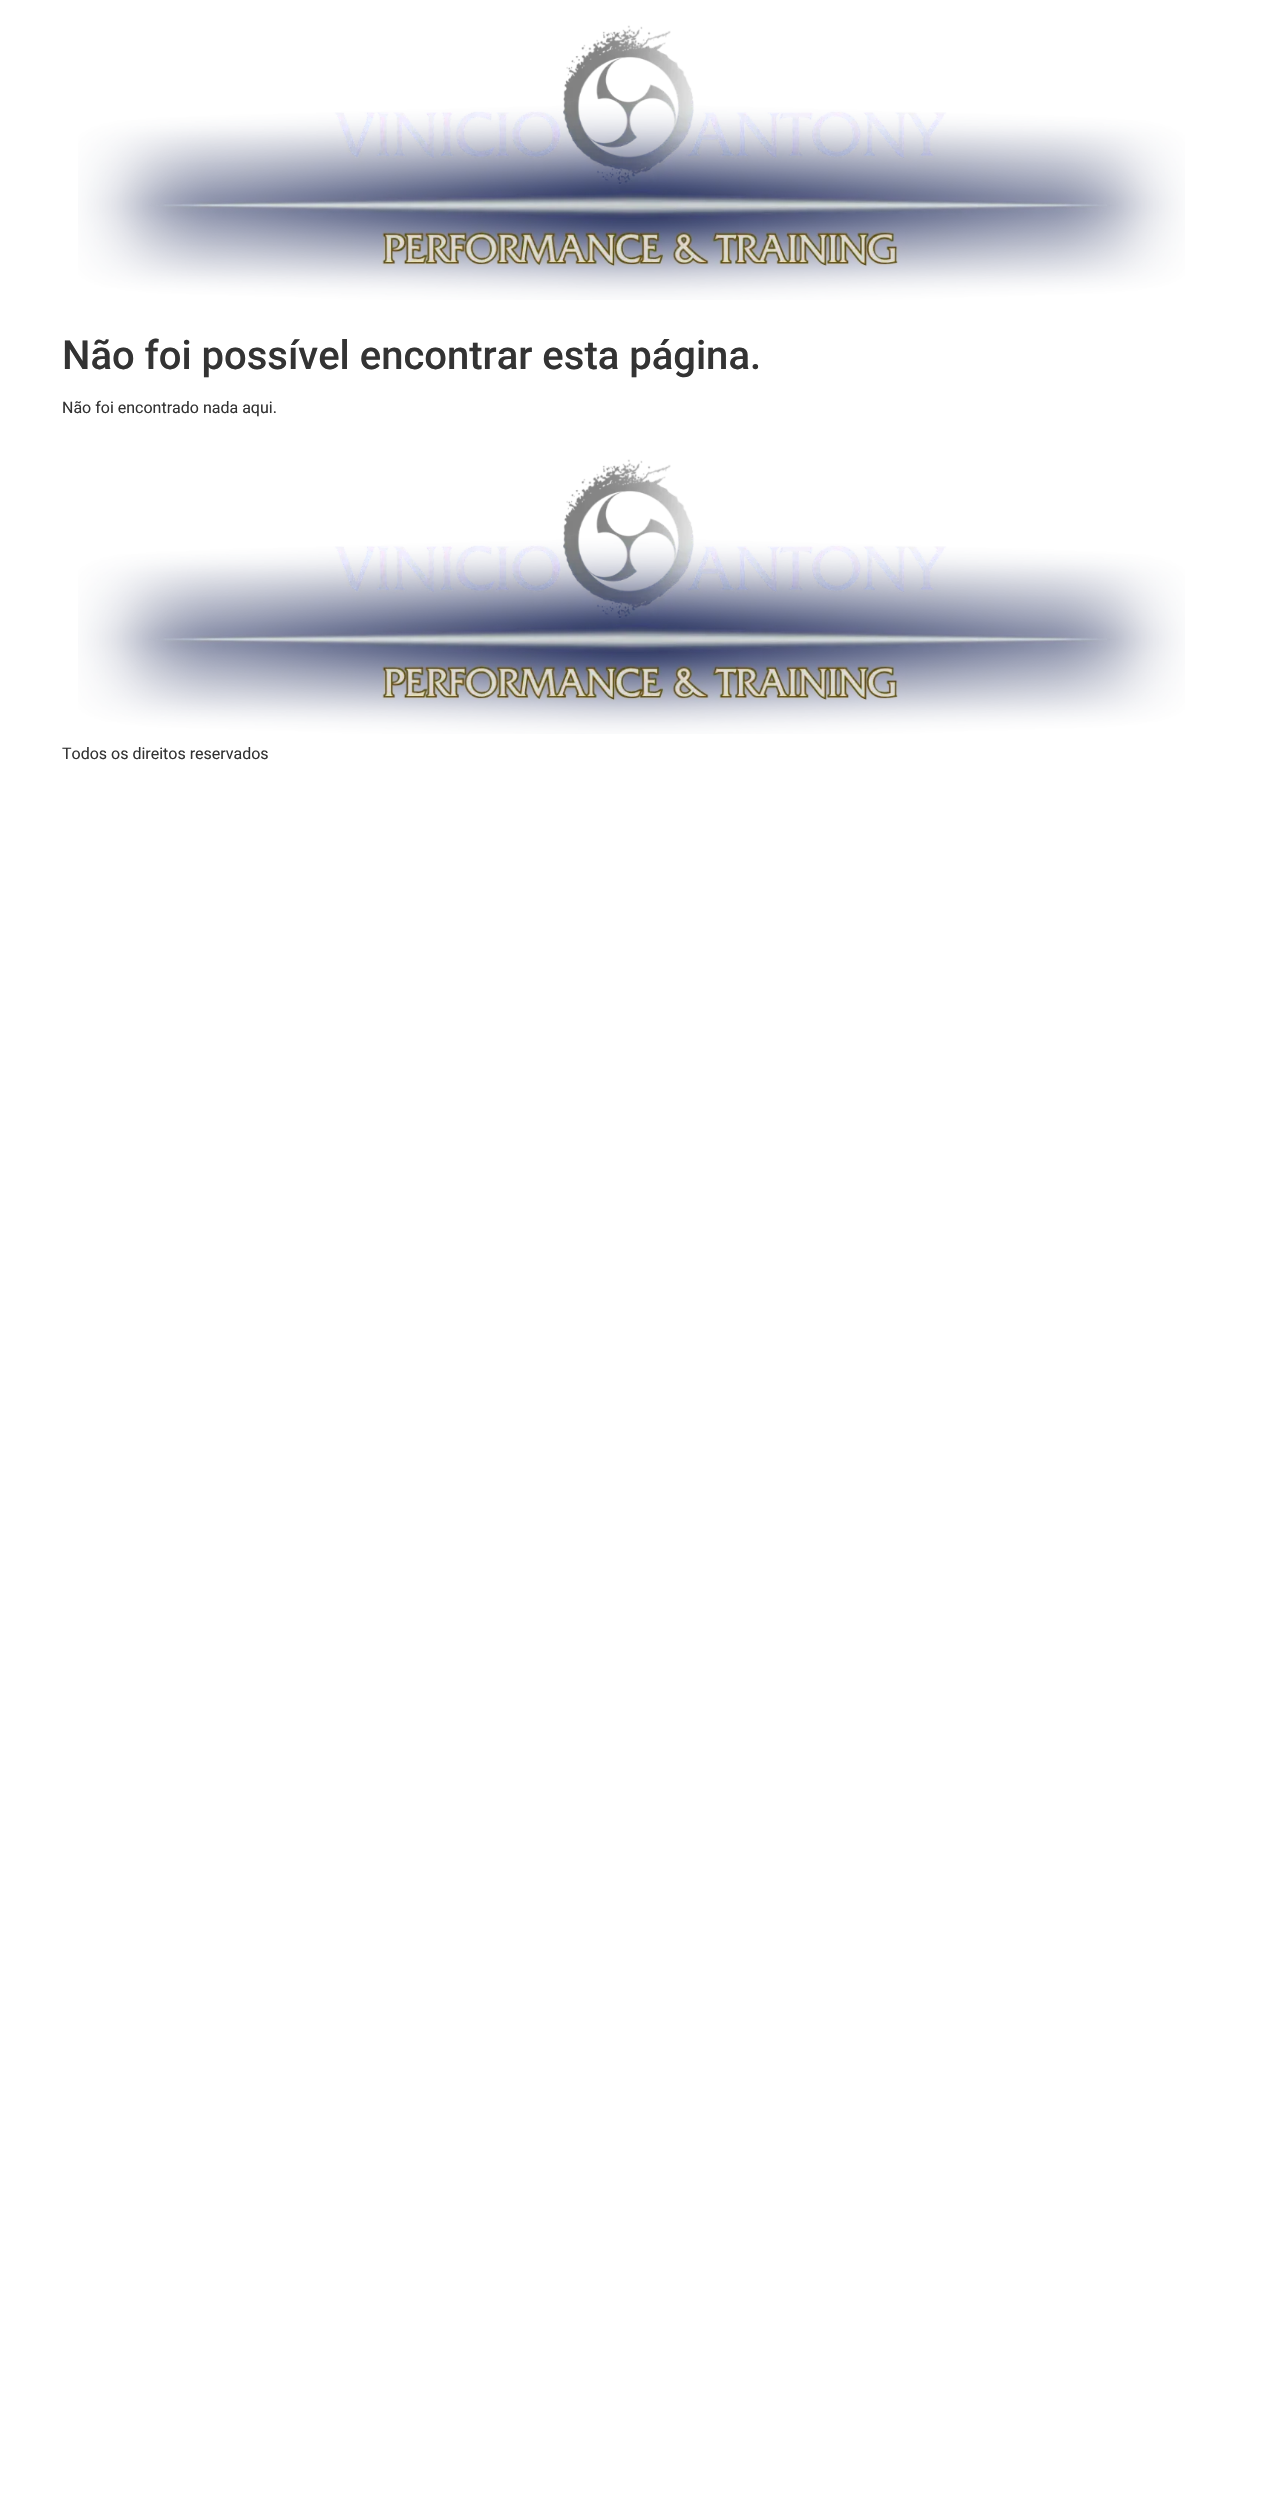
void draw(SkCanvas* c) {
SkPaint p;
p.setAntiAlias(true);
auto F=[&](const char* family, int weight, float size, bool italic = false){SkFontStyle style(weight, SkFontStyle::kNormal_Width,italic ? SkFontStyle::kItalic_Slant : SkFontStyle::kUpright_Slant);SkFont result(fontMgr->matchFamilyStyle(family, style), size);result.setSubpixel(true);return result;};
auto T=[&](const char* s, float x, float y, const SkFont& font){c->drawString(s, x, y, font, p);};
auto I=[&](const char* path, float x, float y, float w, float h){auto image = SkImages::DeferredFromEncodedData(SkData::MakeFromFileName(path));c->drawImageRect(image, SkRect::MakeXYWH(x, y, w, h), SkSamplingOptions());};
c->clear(0xffffffff);
I("1.png",78,25,1107,275);
auto f1 = F("Roboto",500,40);
p.setColor(0xff333333);
T("Não foi possível encontrar esta página.",62,369,f1);
auto f2 = F("Roboto",400,16);
T("Não foi encontrado nada aqui.",62,413,f2);
I("1.png",78,459,1107,275);
T("Todos os direitos reservados",62,759,f2);
}
